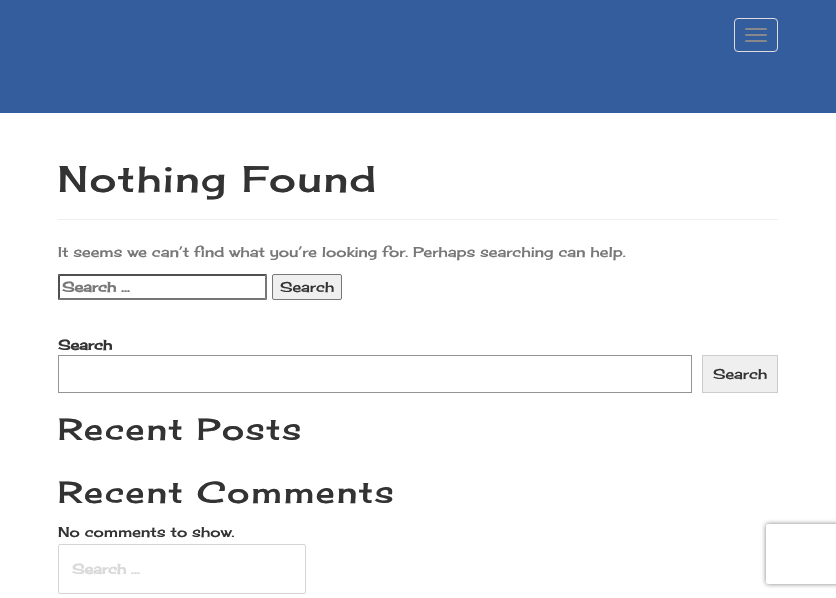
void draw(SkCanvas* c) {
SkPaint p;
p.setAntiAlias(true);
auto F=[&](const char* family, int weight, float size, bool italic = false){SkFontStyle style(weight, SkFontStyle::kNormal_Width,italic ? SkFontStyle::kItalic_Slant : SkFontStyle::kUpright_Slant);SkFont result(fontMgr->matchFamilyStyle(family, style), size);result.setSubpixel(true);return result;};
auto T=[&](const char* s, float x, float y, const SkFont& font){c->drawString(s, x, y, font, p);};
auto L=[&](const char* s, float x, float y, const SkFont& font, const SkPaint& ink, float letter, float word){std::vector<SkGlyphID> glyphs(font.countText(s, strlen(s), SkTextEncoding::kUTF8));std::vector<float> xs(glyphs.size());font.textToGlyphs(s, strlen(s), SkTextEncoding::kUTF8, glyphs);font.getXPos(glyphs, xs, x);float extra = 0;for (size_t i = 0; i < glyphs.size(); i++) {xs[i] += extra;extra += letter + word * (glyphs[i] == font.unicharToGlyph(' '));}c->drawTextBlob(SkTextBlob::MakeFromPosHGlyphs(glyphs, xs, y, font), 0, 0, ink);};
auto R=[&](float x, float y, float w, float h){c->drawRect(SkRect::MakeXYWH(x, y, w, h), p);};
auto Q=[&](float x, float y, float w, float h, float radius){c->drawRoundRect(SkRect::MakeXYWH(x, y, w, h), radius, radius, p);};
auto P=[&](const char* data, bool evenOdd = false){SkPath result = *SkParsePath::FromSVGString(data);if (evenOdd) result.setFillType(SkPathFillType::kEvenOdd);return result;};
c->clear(0xffffffff);
p.setColor(0xff345d9d);
R(0,0,836,113);
p.setStroke(true);
p.setStrokeWidth(1);
p.setColor(0xffdddddd);
c->drawRoundRect(SkRect::MakeXYWH(734.5,18.5,43,33),3.5,3.5,p);
p.setStroke(false);
p.setColor(0xff888888);
Q(745,28,22,2,1);
Q(745,34,22,2,1);
Q(745,40,22,2,1);
p.setColor(0xffeeeeee);
R(58,219,720,1);
auto f1 = F("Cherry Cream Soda",400,36);
p.setColor(0xff333333);
L("Nothing Found",58,192,f1,p,2,0);
auto f2 = F("Cherry Cream Soda",400,14);
p.setColor(0xff777777);
T("It seems we can’t find what you’re looking for. Perhaps searching can help.",58,257,f2);
p.setColor(0xff4f4f4f);
c->drawPath(P("M58 274h209l-2 2h-205z"),p);
p.setColor(0xff767676);
c->drawPath(P("M267 274v26l-2-2v-22z"),p);
c->drawPath(P("M267 300h-209l2-2h205z"),p);
p.setColor(0xff4f4f4f);
c->drawPath(P("M58 300v-26l2 2v22z"),p);
auto f3 = F("Cherry Cream Soda",700,14);
p.setColor(0xff777777);
T("Search …",62,292,f3);
p.setColor(0xffefefef);
c->drawRoundRect(SkRect::MakeXYWH(272.5,274.5,69,25),1.5,1.5,p);
p.setStroke(true);
p.setColor(0xff767676);
c->drawRoundRect(SkRect::MakeXYWH(272.5,274.5,69,25),1.5,1.5,p);
p.setStroke(false);
p.setColor(0xff333333);
T("Search",280,292,f2);
T("Search",58,350,f3);
p.setStroke(true);
p.setColor(0xff949494);
c->drawRect(SkRect::MakeXYWH(58.5,355.5,633,37),p);
p.setStroke(false);
p.setColor(0xffefefef);
c->drawRect(SkRect::MakeXYWH(702.5,355.5,75,37),p);
p.setStroke(true);
p.setColor(0xffcccccc);
c->drawRect(SkRect::MakeXYWH(702.5,355.5,75,37),p);
p.setStroke(false);
p.setColor(0xff333333);
T("Search",713,379,f2);
auto f4 = F("Cherry Cream Soda",400,30);
L("Recent Posts",58,440,f4,p,2,0);
L("Recent Comments",58,503,f4,p,2,0);
T("No comments to show.",58,537,f2);
p.setStroke(true);
p.setColor(0xffd5d5d5);
c->drawRoundRect(SkRect::MakeXYWH(58.5,544.5,247,49),1.5,1.5,p);
p.setStroke(false);
p.setColor(0xffd9d9d9);
T("Search …",72,574,f3);
c->save();
c->clipPath(P("M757 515h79v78h-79zm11 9h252c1 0 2 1 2 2v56c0 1-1 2-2 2h-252c-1 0-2-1-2-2v-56c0-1 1-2 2-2z",true),true);
p.setColor(0xff808080);
p.setMaskFilter(SkMaskFilter::MakeBlur(kNormal_SkBlurStyle, 2.5));
c->drawRoundRect(SkRect::MakeXYWH(766,524,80,60),2,2,p);
p.setMaskFilter(nullptr);
c->restore();
}
